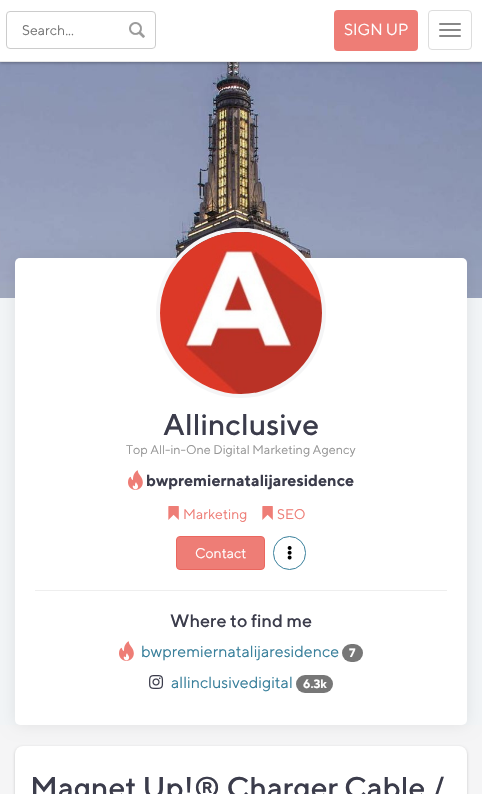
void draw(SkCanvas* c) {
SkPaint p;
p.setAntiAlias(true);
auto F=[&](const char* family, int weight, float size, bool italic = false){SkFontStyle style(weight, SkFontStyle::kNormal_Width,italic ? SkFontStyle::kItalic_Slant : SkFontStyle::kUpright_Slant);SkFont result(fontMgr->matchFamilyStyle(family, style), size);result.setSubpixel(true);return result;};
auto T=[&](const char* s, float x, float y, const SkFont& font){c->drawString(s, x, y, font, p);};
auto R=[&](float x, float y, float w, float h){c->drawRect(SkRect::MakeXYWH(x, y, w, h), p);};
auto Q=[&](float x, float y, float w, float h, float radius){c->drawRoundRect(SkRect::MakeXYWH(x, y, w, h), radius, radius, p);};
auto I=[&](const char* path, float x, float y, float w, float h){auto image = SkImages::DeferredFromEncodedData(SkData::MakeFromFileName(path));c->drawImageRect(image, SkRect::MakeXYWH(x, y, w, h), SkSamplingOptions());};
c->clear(0xfff5f5f6);
I("2.png",0,62,482,236);
p.setColor(0x4d000000);
p.setMaskFilter(SkMaskFilter::MakeBlur(kNormal_SkBlurStyle, 1.5));
c->drawRect(SkRect::MakeXYWH(0,1,482,62),p);
p.setMaskFilter(nullptr);
p.setColor(0xffffffff);
R(0,0,482,61);
p.setColor(0xffe7e7e7);
R(0,61,482,1);
I("1.png",129,22,16,16);
p.setStroke(true);
p.setStrokeWidth(1);
p.setColor(0xffcccccc);
c->drawRoundRect(SkRect::MakeXYWH(6.5,11.5,149,37),3.5,3.5,p);
auto f1 = F("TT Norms",400,14);
p.setStroke(false);
p.setColor(0xff757575);
T("Search...",22,35,f1);
p.setColor(0xffee7d76);
Q(334,10,84,41,4);
auto f2 = F("TT Norms",400,16);
p.setColor(0xffffffff);
T("SIGN UP",344,35,f2);
p.setStroke(true);
p.setColor(0xffdddddd);
c->drawRoundRect(SkRect::MakeXYWH(428.5,10.5,43,39),3.5,3.5,p);
p.setStroke(false);
p.setColor(0xff888888);
Q(439,23,22,2,1);
Q(439,29,22,2,1);
Q(439,35,22,2,1);
p.setColor(0xfff2f5f7);
R(0,298,482,427);
p.setColor(0x14000000);
p.setMaskFilter(SkMaskFilter::MakeBlur(kNormal_SkBlurStyle, 7.5));
c->drawRoundRect(SkRect::MakeXYWH(15,258,452,467),5,5,p);
p.setMaskFilter(nullptr);
p.setColor(0xffffffff);
Q(15,258,452,467,5);
p.setStroke(true);
p.setStrokeWidth(4);
p.setColor(0xfff5f5f6);
c->drawCircle(241,313,83,p);
I("3.png",160,232,162,162);
auto f3 = F("TT Norms",500,30);
p.setStroke(false);
p.setColor(0xff3b3c4b);
T("Allinclusive",163,435,f3);
auto f4 = F("TT Norms",400,12.6);
p.setColor(0xff969696);
T("Top All-in-One Digital Marketing Agency",126,454,f4);
I("4.png",128,470,15,20);
auto f5 = F("TT Norms",700,16);
p.setColor(0xff3b3c4b);
T("bwpremiernatalijaresidence",146,486,f5);
I("5.png",168,506,11,14);
p.setColor(0xffee7d76);
T("Marketing",183,519,f1);
I("5.png",262,506,11,14);
T("SEO",277,519,f1);
c->drawRoundRect(SkRect::MakeXYWH(176.5,536.5,88,33),3.5,3.5,p);
p.setStroke(true);
p.setStrokeWidth(1);
p.setColor(0xffeb675f);
c->drawRoundRect(SkRect::MakeXYWH(176.5,536.5,88,33),3.5,3.5,p);
p.setStroke(false);
p.setColor(0xffffffff);
T("Contact",195,558,f1);
p.setStroke(true);
p.setColor(0xff387f9b);
c->drawRoundRect(SkRect::MakeXYWH(273.5,536.5,32,33),16,16,p);
I("6.png",287,546,5,14);
p.setStroke(false);
p.setColor(0xffeeeeee);
R(35,590,412,1);
auto f6 = F("TT Norms",500,18);
p.setColor(0xff3b3c4b);
T("Where to find me",170,627,f6);
I("4.png",119,641,15,20);
p.setColor(0xff387f9b);
T("bwpremiernatalijaresidence",141,657,f2);
p.setColor(0xff777777);
Q(342,644,21,18,9);
auto f7 = F("TT Norms",700,12);
p.setColor(0xffffffff);
T("7",349,657,f7);
I("7.png",149,675,15,14);
p.setColor(0xff387f9b);
T("allinclusivedigital",171,688,f2);
p.setColor(0xff777777);
Q(296,675,37,18,9);
p.setColor(0xffffffff);
T("6.3k",303,688,f7);
p.setColor(0x33000000);
p.setMaskFilter(SkMaskFilter::MakeBlur(kNormal_SkBlurStyle, 1.5));
c->drawRoundRect(SkRect::MakeXYWH(15,747,452,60),8,8,p);
p.setMaskFilter(nullptr);
p.setColor(0xffffffff);
Q(15,746,452,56,8);
p.setColor(0xff3b3c4b);
T("Magnet Up!® Charger Cable /",30,798,f3);
}
